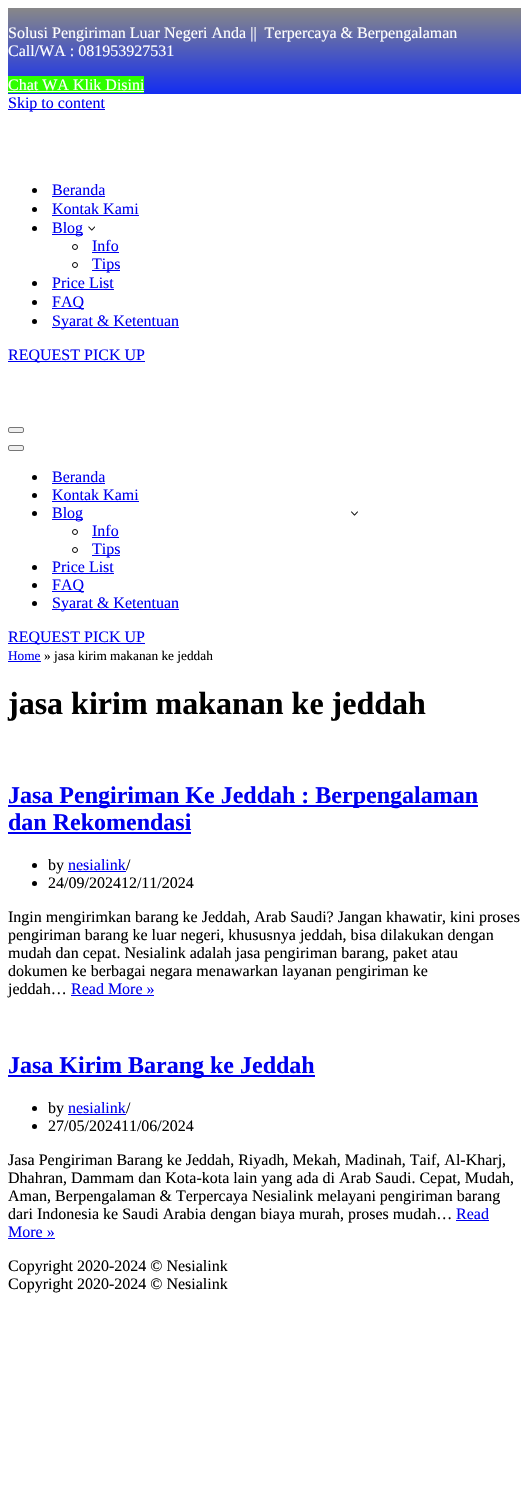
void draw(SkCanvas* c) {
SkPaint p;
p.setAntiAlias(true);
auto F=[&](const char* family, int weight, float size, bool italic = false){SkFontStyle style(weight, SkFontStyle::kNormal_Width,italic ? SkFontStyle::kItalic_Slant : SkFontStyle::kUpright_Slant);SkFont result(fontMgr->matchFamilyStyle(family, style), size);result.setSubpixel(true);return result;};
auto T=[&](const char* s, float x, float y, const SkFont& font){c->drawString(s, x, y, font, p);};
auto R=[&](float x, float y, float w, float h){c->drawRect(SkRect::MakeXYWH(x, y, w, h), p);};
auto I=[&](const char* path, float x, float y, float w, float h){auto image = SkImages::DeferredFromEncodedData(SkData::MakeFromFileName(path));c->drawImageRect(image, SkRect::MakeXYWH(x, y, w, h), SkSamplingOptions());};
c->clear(0xffffffff);
{
const SkColor colors[] = {0xff888888,0xff132df2};
const float stops[] = {0,1};
const SkPoint ends[] = {{265,8}, {265,94}};
p.setShader(SkGradientShader::MakeLinear(ends, colors, stops, 2, SkTileMode::kClamp));
p.setAlpha(255);
}
R(8,8,513,86);
auto f1 = F("Liberation Serif",400,16);
p.setShader(nullptr);
p.setColor(0xffffffff);
T("Solusi Pengiriman Luar Negeri Anda ||  Terpercaya & Berpengalaman",8,38,f1);
T("Call/WA : 081953927531",8,56,f1);
p.setColor(0xff2fff00);
R(8,76,136,17);
p.setColor(0xffffffff);
T("Chat WA Klik Disini",8,90,f1);
R(8,91,136,1);
p.setColor(0xff0000ee);
R(8,109,97,1);
T("Skip to content",8,108,f1);
p.setColor(0xff000000);
c->drawCircle(34.5,190.5,2.5,p);
p.setColor(0xff0000ee);
T("Beranda",52,195,f1);
R(52,196,53,1);
p.setColor(0xff000000);
c->drawCircle(34.5,209.5,2.5,p);
p.setColor(0xff0000ee);
T("Kontak Kami",52,214,f1);
R(52,215,87,1);
p.setColor(0xff000000);
c->drawCircle(34.5,228.5,2.5,p);
p.setColor(0xff0000ee);
R(52,234,31,1);
T("Blog",52,233,f1);
I("1.png",88,226,7,5);
p.setStroke(true);
p.setStrokeWidth(1);
p.setColor(0xff000000);
c->drawCircle(75,247,2.5,p);
p.setStroke(false);
p.setColor(0xff0000ee);
T("Info",92,251,f1);
R(92,252,27,1);
p.setStroke(true);
p.setColor(0xff000000);
c->drawCircle(75,265,2.5,p);
p.setStroke(false);
p.setColor(0xff0000ee);
R(92,270,28,1);
T("Tips",92,269,f1);
p.setColor(0xff000000);
c->drawCircle(34.5,283.5,2.5,p);
p.setColor(0xff0000ee);
T("Price List",52,288,f1);
R(52,289,62,1);
p.setColor(0xff000000);
c->drawCircle(34.5,302.5,2.5,p);
p.setColor(0xff0000ee);
R(52,308,32,1);
T("FAQ",52,307,f1);
p.setColor(0xff000000);
c->drawCircle(34.5,321.5,2.5,p);
p.setColor(0xff0000ee);
R(52,327,127,1);
T("Syarat & Ketentuan",52,326,f1);
R(8,361,137,1);
T("REQUEST PICK UP",8,360,f1);
p.setColor(0xffefefef);
c->drawRoundRect(SkRect::MakeXYWH(8.5,427.5,15,5),1.5,1.5,p);
p.setStroke(true);
p.setColor(0xff767676);
c->drawRoundRect(SkRect::MakeXYWH(8.5,427.5,15,5),1.5,1.5,p);
p.setStroke(false);
p.setColor(0xffefefef);
c->drawRoundRect(SkRect::MakeXYWH(8.5,445.5,15,5),1.5,1.5,p);
p.setStroke(true);
p.setColor(0xff767676);
c->drawRoundRect(SkRect::MakeXYWH(8.5,445.5,15,5),1.5,1.5,p);
p.setStroke(false);
p.setColor(0xff000000);
c->drawCircle(34.5,477.5,2.5,p);
p.setColor(0xff0000ee);
T("Beranda",52,482,f1);
R(52,483,53,1);
p.setColor(0xff000000);
c->drawCircle(34.5,495.5,2.5,p);
p.setColor(0xff0000ee);
T("Kontak Kami",52,500,f1);
R(52,501,87,1);
p.setColor(0xff000000);
c->drawCircle(34.5,513.5,2.5,p);
p.setColor(0xff0000ee);
R(52,519,31,1);
T("Blog",52,518,f1);
I("2.png",351,511,7,5);
p.setStroke(true);
p.setColor(0xff000000);
c->drawCircle(75,532,2.5,p);
p.setStroke(false);
p.setColor(0xff0000ee);
T("Info",92,536,f1);
R(92,537,27,1);
p.setStroke(true);
p.setColor(0xff000000);
c->drawCircle(75,550,2.5,p);
p.setStroke(false);
p.setColor(0xff0000ee);
R(92,555,28,1);
T("Tips",92,554,f1);
p.setColor(0xff000000);
c->drawCircle(34.5,567.5,2.5,p);
p.setColor(0xff0000ee);
T("Price List",52,572,f1);
R(52,573,62,1);
p.setColor(0xff000000);
c->drawCircle(34.5,585.5,2.5,p);
p.setColor(0xff0000ee);
R(52,591,32,1);
T("FAQ",52,590,f1);
p.setColor(0xff000000);
c->drawCircle(34.5,603.5,2.5,p);
p.setColor(0xff0000ee);
R(52,609,127,1);
T("Syarat & Ketentuan",52,608,f1);
R(8,643,137,1);
T("REQUEST PICK UP",8,642,f1);
auto f2 = F("Liberation Serif",400,13.3);
T("Home",8,660,f2);
R(8,661,33,1);
p.setColor(0xff000000);
T("» jasa kirim makanan ke jeddah",44,660,f2);
auto f3 = F("Liberation Serif",700,32);
T("jasa kirim makanan ke jeddah",8,714,f3);
p.setColor(0xff0000ee);
R(8,805,470,2);
auto f4 = F("Liberation Serif",700,24);
T("Jasa Pengiriman Ke Jeddah : Berpengalaman",8,803,f4);
T("dan Rekomendasi",8,830,f4);
R(8,832,183,2);
p.setColor(0xff000000);
c->drawCircle(34.5,865.5,2.5,p);
T("by",48,870,f1);
p.setColor(0xff0000ee);
T("nesialink",68,870,f1);
R(68,871,58,1);
p.setColor(0xff000000);
T("/",126,870,f1);
c->drawCircle(34.5,883.5,2.5,p);
T("24/09/202412/11/2024",48,888,f1);
T("Ingin mengirimkan barang ke Jeddah, Arab Saudi? Jangan khawatir, kini proses",8,922,f1);
T("pengiriman barang ke luar negeri, khususnya jeddah, bisa dilakukan dengan",8,940,f1);
T("mudah dan cepat. Nesialink adalah jasa pengiriman barang, paket atau",8,958,f1);
T("dokumen ke berbagai negara menawarkan layanan pengiriman ke",8,976,f1);
T("jeddah…",8,994,f1);
p.setColor(0xff0000ee);
T("Read More »",71,994,f1);
R(71,995,83,1);
R(8,1075,307,2);
T("Jasa Kirim Barang ke Jeddah",8,1073,f4);
p.setColor(0xff000000);
c->drawCircle(34.5,1108.5,2.5,p);
T("by",48,1113,f1);
p.setColor(0xff0000ee);
T("nesialink",68,1113,f1);
R(68,1114,58,1);
p.setColor(0xff000000);
T("/",126,1113,f1);
c->drawCircle(34.5,1126.5,2.5,p);
T("27/05/202411/06/2024",48,1131,f1);
T("Jasa Pengiriman Barang ke Jeddah, Riyadh, Mekah, Madinah, Taif, Al-Kharj,",8,1165,f1);
T("Dhahran, Dammam dan Kota-kota lain yang ada di Arab Saudi. Cepat, Mudah,",8,1183,f1);
T("Aman, Berpengalaman & Terpercaya Nesialink melayani pengiriman barang",8,1201,f1);
T("dari Indonesia ke Saudi Arabia dengan biaya murah, proses mudah…",8,1219,f1);
p.setColor(0xff0000ee);
T("Read",456,1219,f1);
R(456,1220,33,1);
T("More »",8,1237,f1);
R(8,1238,47,1);
p.setColor(0xff000000);
T("Copyright 2020-2024 © Nesialink",8,1271,f1);
T("Copyright 2020-2024 © Nesialink",8,1289,f1);
}
